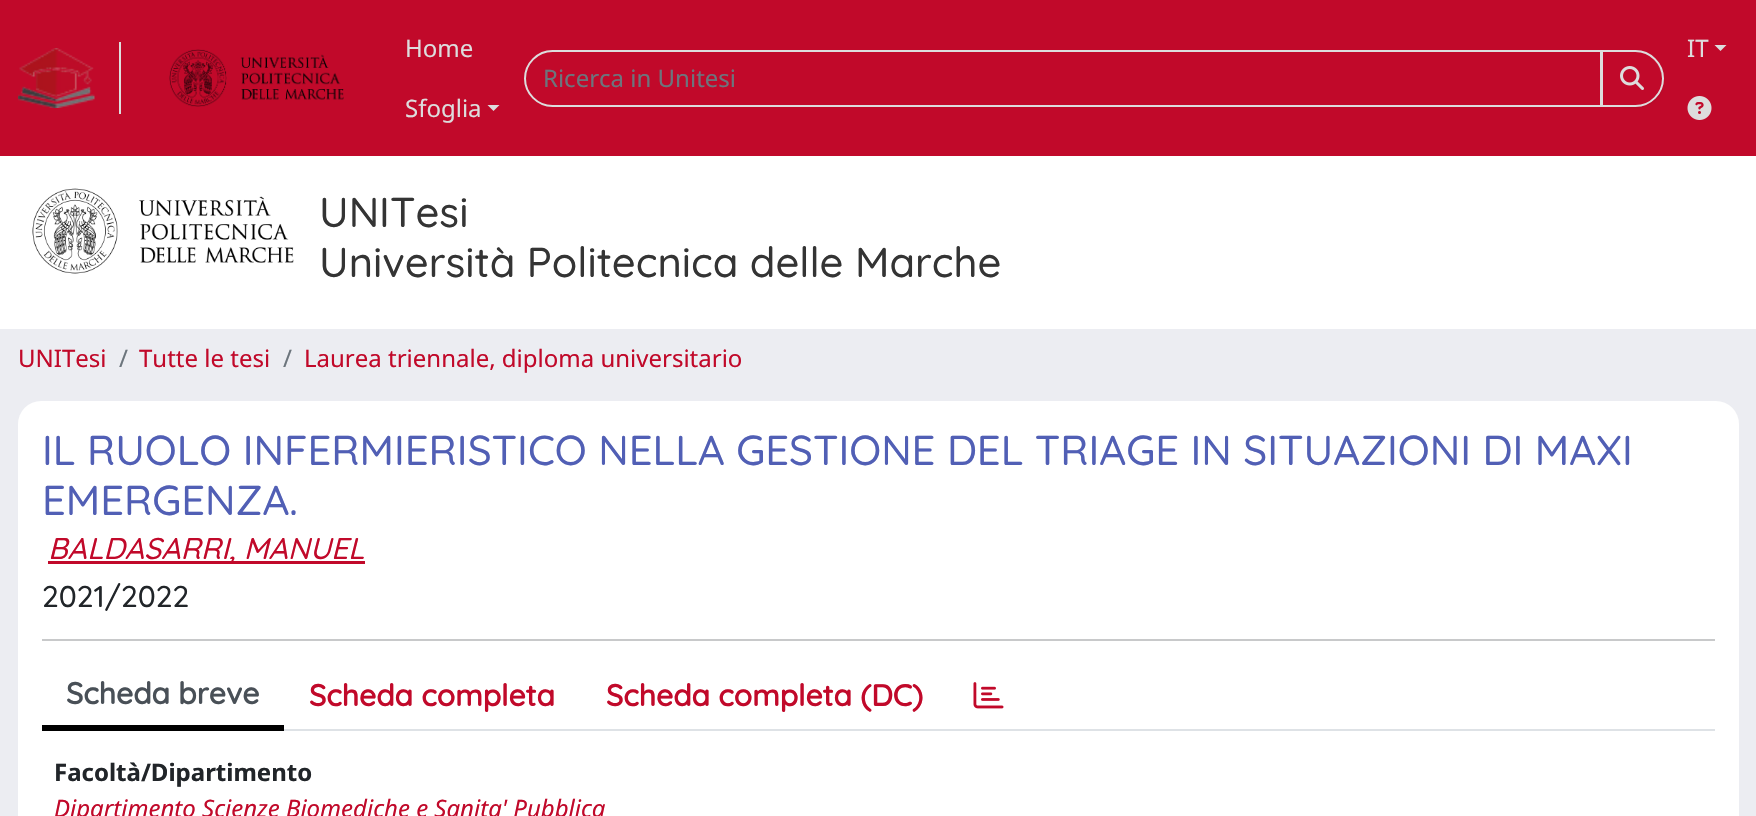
void draw(SkCanvas* c) {
SkPaint p;
p.setAntiAlias(true);
auto F=[&](const char* family, int weight, float size, bool italic = false){SkFontStyle style(weight, SkFontStyle::kNormal_Width,italic ? SkFontStyle::kItalic_Slant : SkFontStyle::kUpright_Slant);SkFont result(fontMgr->matchFamilyStyle(family, style), size);result.setSubpixel(true);return result;};
auto T=[&](const char* s, float x, float y, const SkFont& font){c->drawString(s, x, y, font, p);};
auto R=[&](float x, float y, float w, float h){c->drawRect(SkRect::MakeXYWH(x, y, w, h), p);};
auto Q=[&](float x, float y, float w, float h, float radius){c->drawRoundRect(SkRect::MakeXYWH(x, y, w, h), radius, radius, p);};
auto I=[&](const char* path, float x, float y, float w, float h){auto image = SkImages::DeferredFromEncodedData(SkData::MakeFromFileName(path));c->drawImageRect(image, SkRect::MakeXYWH(x, y, w, h), SkSamplingOptions());};
auto P=[&](const char* data, bool evenOdd = false){SkPath result = *SkParsePath::FromSVGString(data);if (evenOdd) result.setFillType(SkPathFillType::kEvenOdd);return result;};
c->clear(0xffecedf2);
p.setColor(0xffc1092a);
R(0,0,1756,156);
p.setColor(0xffdddddd);
R(119,42,2,72);
I("1.png",18,48,77,60);
I("2.png",169,49,175,58);
auto f1 = F("Noto Sans",400,24);
T("Home",405,57,f1);
T("Sfoglia",405,117,f1);
c->drawPath(P("M487.5 105h12l-6 6z"),p);
T("IT",1687,57,f1);
c->drawPath(P("M1714.5 45h12l-6 6z"),p);
I("3.png",1687,96,25,24);
p.setStroke(true);
p.setStrokeWidth(2);
c->drawPath(P("M552.5 51h1048.5v55h-1048.5c-15 0-27.5-12.5-27.5-27.5c0-15 12.5-27.5 27.5-27.5z"),p);
p.setStroke(false);
p.setColor(0xff6c757d);
T("Ricerca in Unitesi",543,87,f1);
p.setColor(0x12000000);
p.setMaskFilter(SkMaskFilter::MakeBlur(kNormal_SkBlurStyle, 1));
c->drawRoundRect(SkRect::MakeXYWH(1601,51,63,57),28.5,28.5,p);
p.setMaskFilter(nullptr);
p.setColor(0xffc1092a);
c->drawPath(P("M1601 50h34.5c15.5 0 28.5 13 28.5 28.5c0 15.5-13 28.5-28.5 28.5h-34.5z"),p);
p.setColor(0xffca2e4a);
c->drawPath(P("M1602 52h33c15 0 26 12 27 27v-1c0-15-12-27-27-27h-33z"),p);
p.setStroke(true);
p.setColor(0xffdddddd);
c->drawPath(P("M1602 51h33.5c15 0 27.5 12.5 27.5 27.5c0 15-12.5 27.5-27.5 27.5h-33.5z"),p);
I("4.png",1620,66,24,24);
p.setStroke(false);
p.setColor(0xffffffff);
R(0,156,1756,173);
I("5.png",32,188,262,86);
auto f2 = F("Quicksand",500,41.75);
p.setColor(0xff343434);
T("UNITesi",319,227,f2);
T("Università Politecnica delle Marche",319,277,f2);
p.setColor(0xffc1092a);
T("UNITesi",18,367,f1);
p.setColor(0xff6c757d);
T("/",119,367,f1);
p.setColor(0xffc1092a);
T("Tutte le tesi",139,367,f1);
p.setColor(0xff6c757d);
T("/",283,367,f1);
p.setColor(0xffc1092a);
T("Laurea triennale, diploma universitario",304,367,f1);
p.setColor(0xffffffff);
Q(18,401,1721,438,23);
p.setColor(0xff515fb5);
T("IL RUOLO INFERMIERISTICO NELLA GESTIONE DEL TRIAGE IN SITUAZIONI DI MAXI",42,465,f2);
T("EMERGENZA.",42,515,f2);
p.setColor(0xffc1092a);
R(48,561,317,3);
auto f3 = F("Quicksand",500,30,true);
T("BALDASARRI, MANUEL",48,559,f3);
auto f4 = F("Quicksand",500,30);
p.setColor(0xff212529);
T("2021/2022",42,607,f4);
p.setColor(0xffc8c9ca);
R(42,639,1673,2);
p.setColor(0xffdee2e6);
R(284,729,1431,2);
p.setColor(0xff000000);
R(42,725,242,6);
auto f5 = F("Quicksand",700,30);
p.setColor(0xff495057);
T("Scheda breve",66,704,f5);
p.setColor(0xffc1092a);
T("Scheda completa",309,706,f5);
T("Scheda completa (DC)",606,706,f5);
I("6.png",973,682,31,27);
auto f6 = F("Noto Sans",700,24);
p.setColor(0xff212529);
T("Facoltà/Dipartimento",54,781,f6);
auto f7 = F("Noto Sans",400,24,true);
p.setColor(0xffc1092a);
T("Dipartimento Scienze Biomediche e Sanita' Pubblica",54,817,f7);
}
